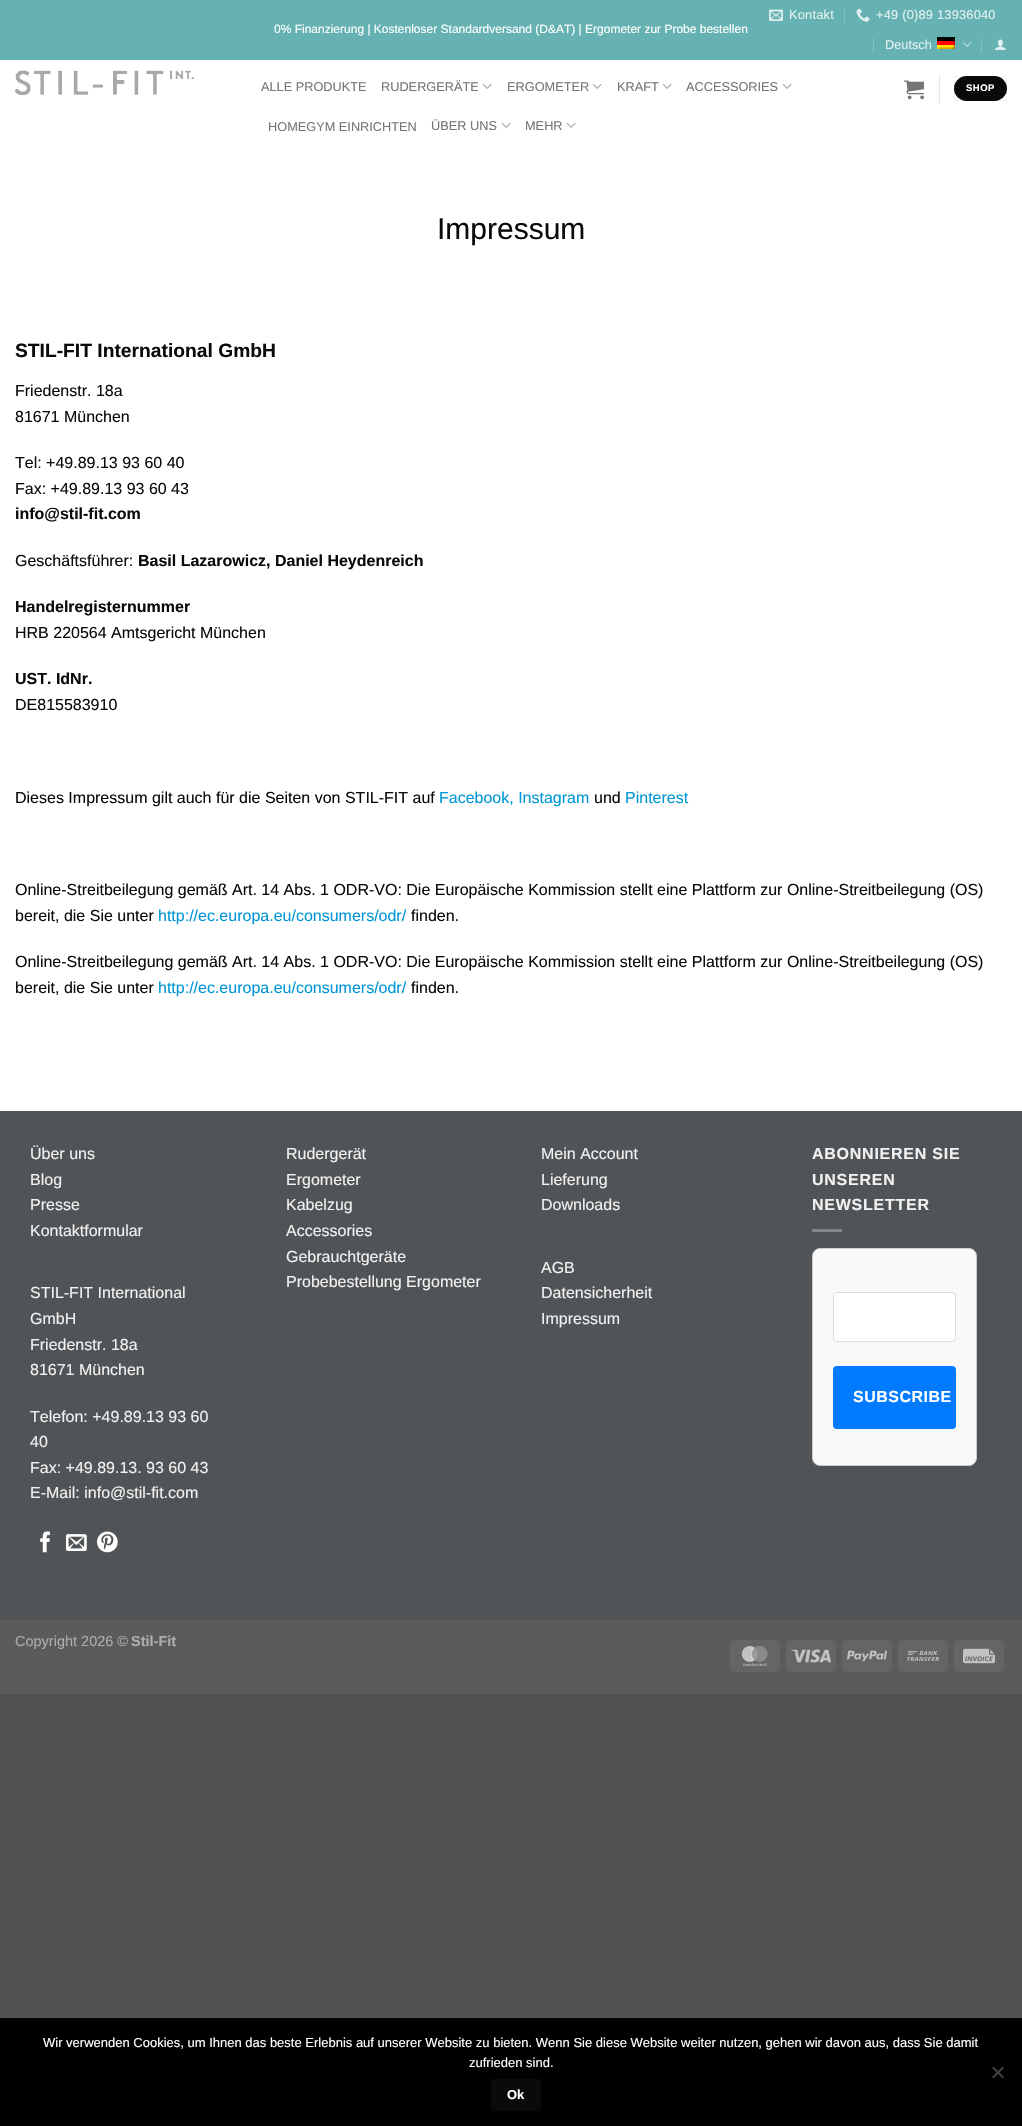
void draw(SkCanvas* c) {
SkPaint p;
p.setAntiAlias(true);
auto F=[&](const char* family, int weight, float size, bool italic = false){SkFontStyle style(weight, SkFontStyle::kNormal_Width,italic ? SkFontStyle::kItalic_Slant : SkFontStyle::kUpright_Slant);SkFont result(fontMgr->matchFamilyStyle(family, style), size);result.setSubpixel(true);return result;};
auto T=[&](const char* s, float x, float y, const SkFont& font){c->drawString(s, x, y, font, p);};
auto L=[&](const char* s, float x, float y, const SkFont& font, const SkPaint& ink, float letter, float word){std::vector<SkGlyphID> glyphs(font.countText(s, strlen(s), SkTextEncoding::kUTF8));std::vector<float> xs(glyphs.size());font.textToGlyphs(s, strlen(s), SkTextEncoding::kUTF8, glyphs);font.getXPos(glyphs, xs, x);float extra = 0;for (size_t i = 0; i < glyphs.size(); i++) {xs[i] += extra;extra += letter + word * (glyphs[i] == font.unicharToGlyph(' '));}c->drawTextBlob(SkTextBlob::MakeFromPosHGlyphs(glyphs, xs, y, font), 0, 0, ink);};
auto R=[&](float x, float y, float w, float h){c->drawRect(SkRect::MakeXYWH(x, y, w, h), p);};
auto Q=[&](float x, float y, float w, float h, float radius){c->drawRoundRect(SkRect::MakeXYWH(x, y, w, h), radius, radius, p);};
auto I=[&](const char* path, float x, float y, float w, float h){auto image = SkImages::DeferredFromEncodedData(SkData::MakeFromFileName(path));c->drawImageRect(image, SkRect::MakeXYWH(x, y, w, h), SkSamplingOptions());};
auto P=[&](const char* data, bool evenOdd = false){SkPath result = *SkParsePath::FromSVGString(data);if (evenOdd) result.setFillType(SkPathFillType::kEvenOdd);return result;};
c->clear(0xff515151);
p.setColor(0xffffffff);
R(0,60,1022,1051);
p.setColor(0xff66b2b2);
R(0,0,1022,60);
auto f1 = F("Liberation Sans",400,12);
p.setColor(0xffffffff);
T("0% Finanzierung | Kostenloser Standardversand (D&AT) | Ergometer zur Probe bestellen",274,33,f1);
I("1.png",769,9,14,12);
auto f2 = F("Liberation Sans",400,12.75);
p.setColor(0xffe0f0f0);
L("Kontakt",789,19,f2,p,.25,0);
p.setColor(0xff85c1c1);
R(844,8,1,15);
I("2.png",856,8,14,14);
p.setColor(0xffe0f0f0);
L("+49 (0)89 13936040",876,19,f2,p,.25,0);
p.setColor(0xff85c1c1);
R(873,38,1,15);
p.setColor(0xffe0f0f0);
T("Deutsch",885,49,f2);
I("3.png",937,37,18,12);
I("4.png",962,41,10,6);
p.setColor(0xff85c1c1);
R(981,38,1,15);
I("5.png",994,39,12,11);
I("6.png",15,70,179,25);
p.setColor(0xff757575);
T("ALLE PRODUKTE",261,91,f2);
T("RUDERGERÄTE",381,91,f2);
I("7.png",482,83,10,6);
T("ERGOMETER",507,91,f2);
I("7.png",592,83,10,6);
T("KRAFT",617,91,f2);
I("7.png",662,83,10,6);
T("ACCESSORIES",686,91,f2);
I("7.png",782,83,10,6);
T("HOMEGYM EINRICHTEN",268,131,f2);
T("ÜBER UNS",431,130,f2);
I("7.png",501,122,10,6);
T("MEHR",525,130,f2);
I("7.png",566,122,10,6);
I("8.png",904,80,20,20);
p.setColor(0xffe6e6e6);
R(939,74,1,30);
p.setColor(0xff0a0a0a);
Q(954,76,53,25,12.5);
p.setStroke(true);
p.setStrokeWidth(1);
p.setColor(0x0d000000);
c->drawRect(SkRect::MakeXYWH(954.5,76.5,52,24),p);
auto f3 = F("Liberation Sans",700,9.5);
p.setStroke(false);
p.setColor(0xffffffff);
L("SHOP",966,91,f3,p,.5,0);
auto f4 = F("Liberation Sans",400,30);
p.setColor(0xff0a0a0a);
T("Impressum",437,239,f4);
auto f5 = F("Liberation Sans",700,19.25);
T("STIL-FIT International GmbH",15,357,f5);
auto f6 = F("Liberation Sans",400,16);
T("Friedenstr. 18a",15,396,f6);
T("81671 München",15,422,f6);
T("Tel: +49.89.13 93 60 40",15,468,f6);
T("Fax: +49.89.13 93 60 43",15,494,f6);
auto f7 = F("Liberation Sans",700,16);
T("info@stil-fit.com",15,519,f7);
T("Geschäftsführer:",15,566,f6);
T("Basil Lazarowicz, Daniel Heydenreich",138,566,f7);
T("Handelregisternummer",15,612,f7);
T("HRB 220564 Amtsgericht München",15,638,f6);
T("UST. IdNr.",15,684,f7);
T("DE815583910",15,710,f6);
T("Dieses Impressum gilt auch für die Seiten von STIL-FIT auf",15,803,f6);
p.setColor(0xff0096d6);
T("Facebook, Instagram",439,803,f6);
p.setColor(0xff0a0a0a);
T("und",594,803,f6);
p.setColor(0xff0096d6);
T("Pinterest",625,803,f6);
p.setColor(0xff0a0a0a);
T("Online-Streitbeilegung gemäß Art. 14 Abs. 1 ODR-VO: Die Europäische Kommission stellt eine Plattform zur Online-Streitbeilegung (OS)",15,895,f6);
T("bereit, die Sie unter",15,921,f6);
p.setColor(0xff0096d6);
T("http://ec.europa.eu/consumers/odr/",158,921,f6);
p.setColor(0xff0a0a0a);
T("finden.",411,921,f6);
T("Online-Streitbeilegung gemäß Art. 14 Abs. 1 ODR-VO: Die Europäische Kommission stellt eine Plattform zur Online-Streitbeilegung (OS)",15,967,f6);
T("bereit, die Sie unter",15,993,f6);
p.setColor(0xff0096d6);
T("http://ec.europa.eu/consumers/odr/",158,993,f6);
p.setColor(0xff0a0a0a);
T("finden.",411,993,f6);
p.setColor(0xff515457);
R(0,1111,1022,509);
p.setColor(0xfff1f1f1);
T("Über uns",30,1159,f6);
T("Blog",30,1185,f6);
T("Presse",30,1210,f6);
T("Kontaktformular",30,1236,f6);
p.setColor(0xff56585b);
R(30,1264,196,1);
p.setColor(0xfff1f1f1);
T("STIL-FIT International",30,1298,f6);
T("GmbH",30,1324,f6);
T("Friedenstr. 18a",30,1350,f6);
T("81671 München",30,1375,f6);
T("Telefon: +49.89.13 93 60",30,1422,f6);
T("40",30,1447,f6);
T("Fax: +49.89.13. 93 60 43",30,1473,f6);
T("E-Mail: info@stil-fit.com",30,1498,f6);
I("9.png",40,1531,10,22);
I("10.png",66,1534,21,17);
I("11.png",97,1531,21,22);
T("Rudergerät",286,1159,f6);
T("Ergometer",286,1185,f6);
T("Kabelzug",286,1210,f6);
T("Accessories",286,1236,f6);
T("Gebrauchtgeräte",286,1262,f6);
T("Probebestellung Ergometer",286,1287,f6);
T("Mein Account",541,1159,f6);
T("Lieferung",541,1185,f6);
T("Downloads",541,1210,f6);
p.setColor(0xff56585b);
R(541,1239,196,1);
p.setColor(0xfff1f1f1);
T("AGB",541,1273,f6);
T("Datensicherheit",541,1298,f6);
T("Impressum",541,1324,f6);
L("ABONNIEREN SIE",812,1159,f7,p,.75,0);
L("UNSEREN",812,1185,f7,p,.75,0);
L("NEWSLETTER",812,1210,f7,p,.75,0);
p.setColor(0xff858789);
R(812,1229,30,3);
p.setColor(0xfff9f9f9);
c->drawRoundRect(SkRect::MakeXYWH(812.5,1248.5,164,217),7.5,7.5,p);
p.setStroke(true);
p.setColor(0xffcccccc);
c->drawRoundRect(SkRect::MakeXYWH(812.5,1248.5,164,217),7.5,7.5,p);
p.setStroke(false);
p.setColor(0xffffffff);
c->drawRoundRect(SkRect::MakeXYWH(833.5,1292.5,122,49),3.5,3.5,p);
p.setStroke(true);
p.setColor(0xffdddddd);
c->drawRoundRect(SkRect::MakeXYWH(833.5,1292.5,122,49),3.5,3.5,p);
p.setStroke(false);
p.setColor(0xff007bff);
Q(833,1366,123,63,4);
p.setColor(0xffffffff);
L("SUBSCRIBE",853,1402,f7,p,.5,0);
p.setColor(0xff5b5b5b);
R(0,1620,1022,74);
auto f8 = F("Liberation Sans",400,14.5);
p.setColor(0xffadadad);
T("Copyright 2026 ©",15,1646,f8);
auto f9 = F("Liberation Sans",700,14.5);
T("Stil-Fit",131,1646,f9);
p.setColor(0xff656565);
Q(730,1640,50,32,5);
I("12.png",741,1646,27,20);
Q(786,1640,50,32,5);
I("13.png",791,1649,40,14);
Q(842,1640,50,32,5);
I("14.png",847,1650,40,12);
Q(898,1640,50,32,5);
I("15.png",907,1651,32,10);
Q(954,1640,50,32,5);
I("16.png",963,1648,32,16);
p.setColor(0xff000000);
R(0,2018,1022,108);
auto f10 = F("Liberation Sans",400,13);
p.setColor(0xffffffff);
T("Wir verwenden Cookies, um Ihnen das beste Erlebnis auf unserer Website zu bieten. Wenn Sie diese Website weiter nutzen, gehen wir davon aus, dass Sie damit",43,2047,f10);
T("zufrieden sind.",469,2067,f10);
p.setColor(0xff404040);
c->drawPath(P("M1002.5 2066.5l1.5 1.5l-10.5 10.5l-1.5-1.5z"),p);
c->drawPath(P("M992 2068l1.5-1.5l10.5 10.5l-1.5 1.5z"),p);
p.setColor(0xff0a0a0a);
R(491,2079,50,32);
auto f11 = F("Liberation Sans",700,13);
p.setColor(0xffffffff);
T("Ok",507,2099,f11);
}
